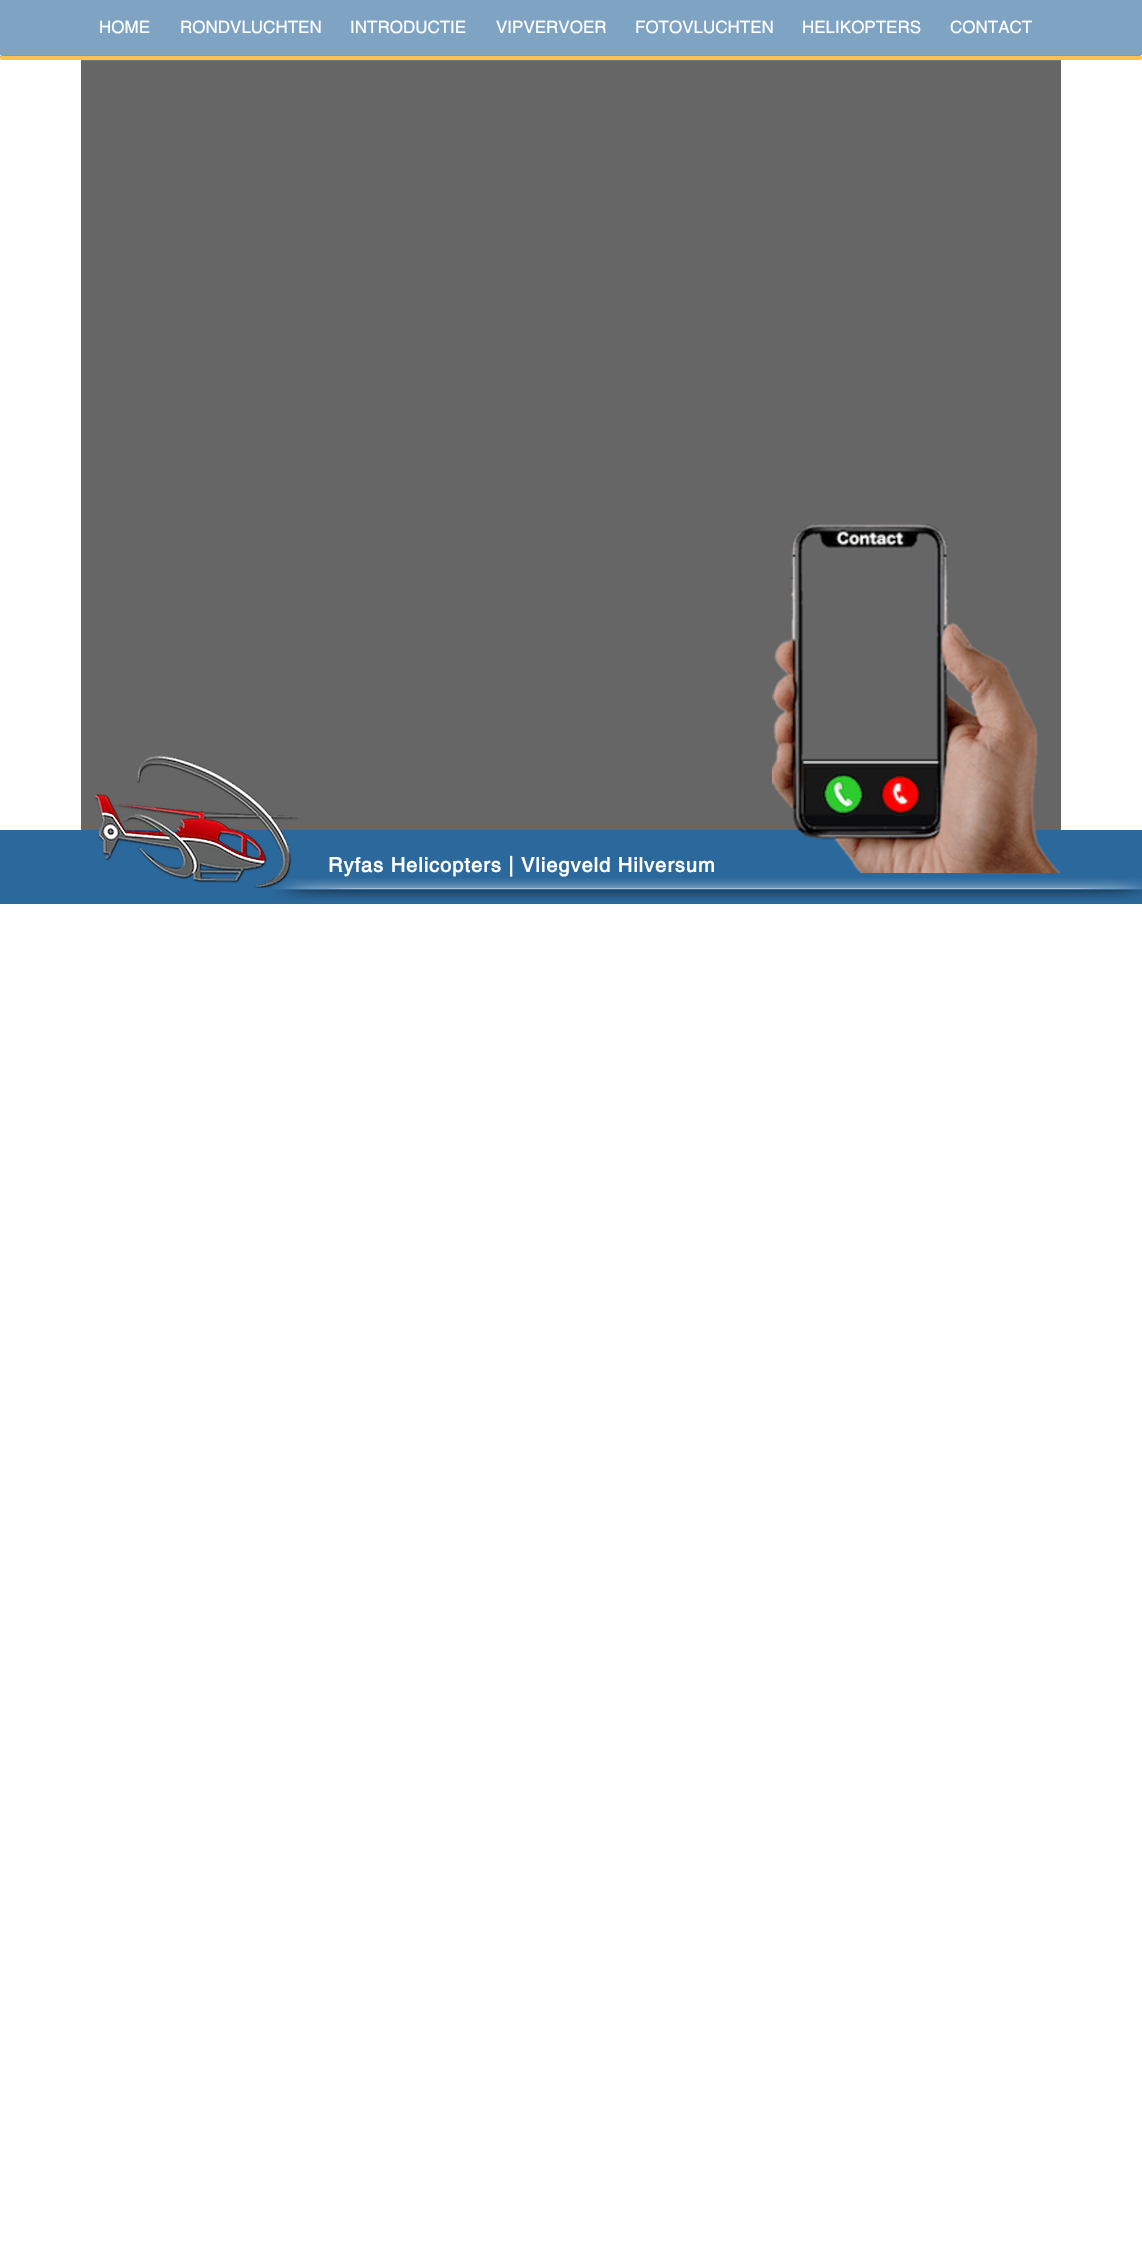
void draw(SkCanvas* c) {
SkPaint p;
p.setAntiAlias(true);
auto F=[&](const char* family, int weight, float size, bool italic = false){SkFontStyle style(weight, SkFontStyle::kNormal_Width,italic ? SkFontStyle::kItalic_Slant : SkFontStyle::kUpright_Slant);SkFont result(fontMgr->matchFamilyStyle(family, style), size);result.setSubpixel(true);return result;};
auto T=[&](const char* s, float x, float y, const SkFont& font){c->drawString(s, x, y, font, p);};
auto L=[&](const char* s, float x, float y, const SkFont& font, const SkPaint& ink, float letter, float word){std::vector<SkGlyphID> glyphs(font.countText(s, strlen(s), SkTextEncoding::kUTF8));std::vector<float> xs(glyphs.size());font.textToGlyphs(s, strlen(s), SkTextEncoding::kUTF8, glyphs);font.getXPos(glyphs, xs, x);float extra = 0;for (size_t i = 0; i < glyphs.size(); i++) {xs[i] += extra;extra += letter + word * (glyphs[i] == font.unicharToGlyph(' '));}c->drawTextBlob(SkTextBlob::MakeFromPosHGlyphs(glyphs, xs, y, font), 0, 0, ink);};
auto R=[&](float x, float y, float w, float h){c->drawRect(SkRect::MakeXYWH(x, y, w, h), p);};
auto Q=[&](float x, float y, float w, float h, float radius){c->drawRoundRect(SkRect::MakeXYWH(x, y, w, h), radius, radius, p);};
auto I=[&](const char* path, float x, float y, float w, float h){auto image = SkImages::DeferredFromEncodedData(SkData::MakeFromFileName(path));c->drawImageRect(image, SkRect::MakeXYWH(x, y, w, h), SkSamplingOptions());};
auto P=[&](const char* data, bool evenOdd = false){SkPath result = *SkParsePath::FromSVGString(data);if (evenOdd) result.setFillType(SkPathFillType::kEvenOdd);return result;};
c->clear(0xffffffff);
p.setColor(0xff7ea3c3);
R(0,0,1142,55);
auto f1 = F("helvetica",400,17);
p.setColor(0xffffffff);
T("HOME",99,33,f1);
T("RONDVLUCHTEN",180,33,f1);
T("INTRODUCTIE",350,33,f1);
T("VIPVERVOER",496,33,f1);
T("FOTOVLUCHTEN",635,33,f1);
T("HELIKOPTERS",802,33,f1);
T("CONTACT",950,33,f1);
p.setColor(0xff666666);
R(81,60,980,770);
p.setColor(0x1affffff);
c->drawPath(P("M0 58c0 2 1 3 2 3h1138c1 0 2-1 2-3c0 1-1 2-2 2h-1138c-1 0-2-1-2-2z"),p);
p.setColor(0xfffec254);
Q(0,55,1142,5,2.5);
p.setColor(0x40000000);
c->drawPath(P("M2 56h1139l1 2l-1-2l-1-1h-1138c-1 0-2 1-2 2c0 0 1-1 2-1z"),p);
p.setColor(0xff2b689c);
R(0,830,1142,74);
I("3.png",272,878,97,23);
I("1.png",95,755,208,133);
auto f2 = F("helvetica",700,20);
p.setColor(0xffffffff);
L("Ryfas Helicopters | Vliegveld Hilversum",328,872,f2,p,1,0);
I("2.png",772,524,289,349);
I("4.png",369,878,691,23);
I("5.png",1060,878,82,23);
}
